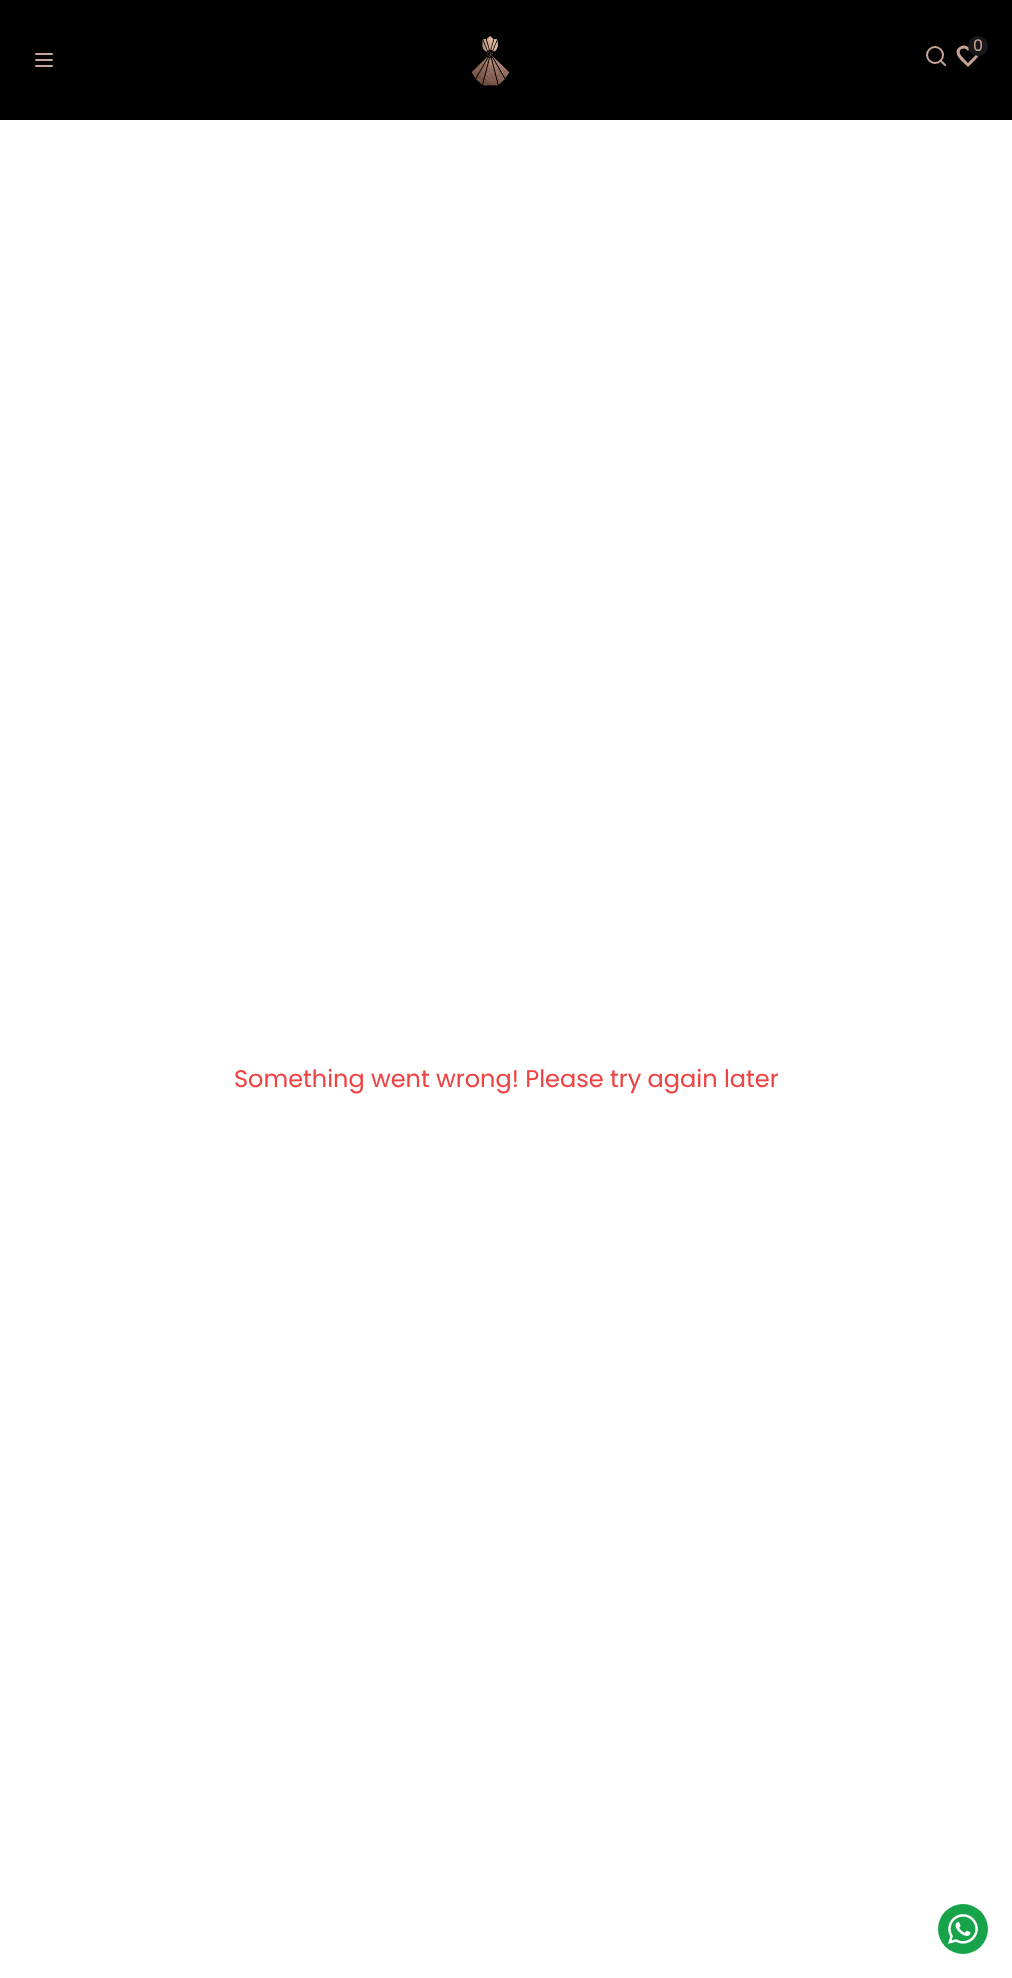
void draw(SkCanvas* c) {
SkPaint p;
p.setAntiAlias(true);
auto F=[&](const char* family, int weight, float size, bool italic = false){SkFontStyle style(weight, SkFontStyle::kNormal_Width,italic ? SkFontStyle::kItalic_Slant : SkFontStyle::kUpright_Slant);SkFont result(fontMgr->matchFamilyStyle(family, style), size);result.setSubpixel(true);return result;};
auto T=[&](const char* s, float x, float y, const SkFont& font){c->drawString(s, x, y, font, p);};
auto R=[&](float x, float y, float w, float h){c->drawRect(SkRect::MakeXYWH(x, y, w, h), p);};
auto I=[&](const char* path, float x, float y, float w, float h){auto image = SkImages::DeferredFromEncodedData(SkData::MakeFromFileName(path));c->drawImageRect(image, SkRect::MakeXYWH(x, y, w, h), SkSamplingOptions());};
auto P=[&](const char* data, bool evenOdd = false){SkPath result = *SkParsePath::FromSVGString(data);if (evenOdd) result.setFillType(SkPathFillType::kEvenOdd);return result;};
c->clear(0xffffffff);
p.setColor(0xff000000);
R(0,0,1012,120);
I("1.png",471,36,39,50);
p.setStroke(true);
p.setStrokeWidth(2);
p.setColor(0xffc9a39a);
c->drawCircle(935,55,8,p);
p.setStrokeCap(SkPaint::kRound_Cap);
p.setStrokeJoin(SkPaint::kRound_Join);
c->drawPath(P("M945 65l-4.5-4.5"),p);
p.setStrokeWidth(3);
c->drawPath(P("M975 58c7.5-7.5-1-15-7-9c-4-4-11.5-1-9.5 5c1 3.5 7 8.5 9.5 11z"),p);
p.setStroke(false);
p.setColor(0xff18181b);
c->drawCircle(978,46,10,p);
auto f1 = F("Poppins",400,16);
p.setColor(0xffc9a39a);
T("0",973,51,f1);
I("2.png",35,53,18,14);
p.setColor(0xff16a34a);
c->drawCircle(963,1929,25,p);
I("3.png",948,1914,30,30);
auto f2 = F("Poppins",400,24);
p.setColor(0xffef4444);
T("Something went wrong! Please try again later",234,1087,f2);
}
